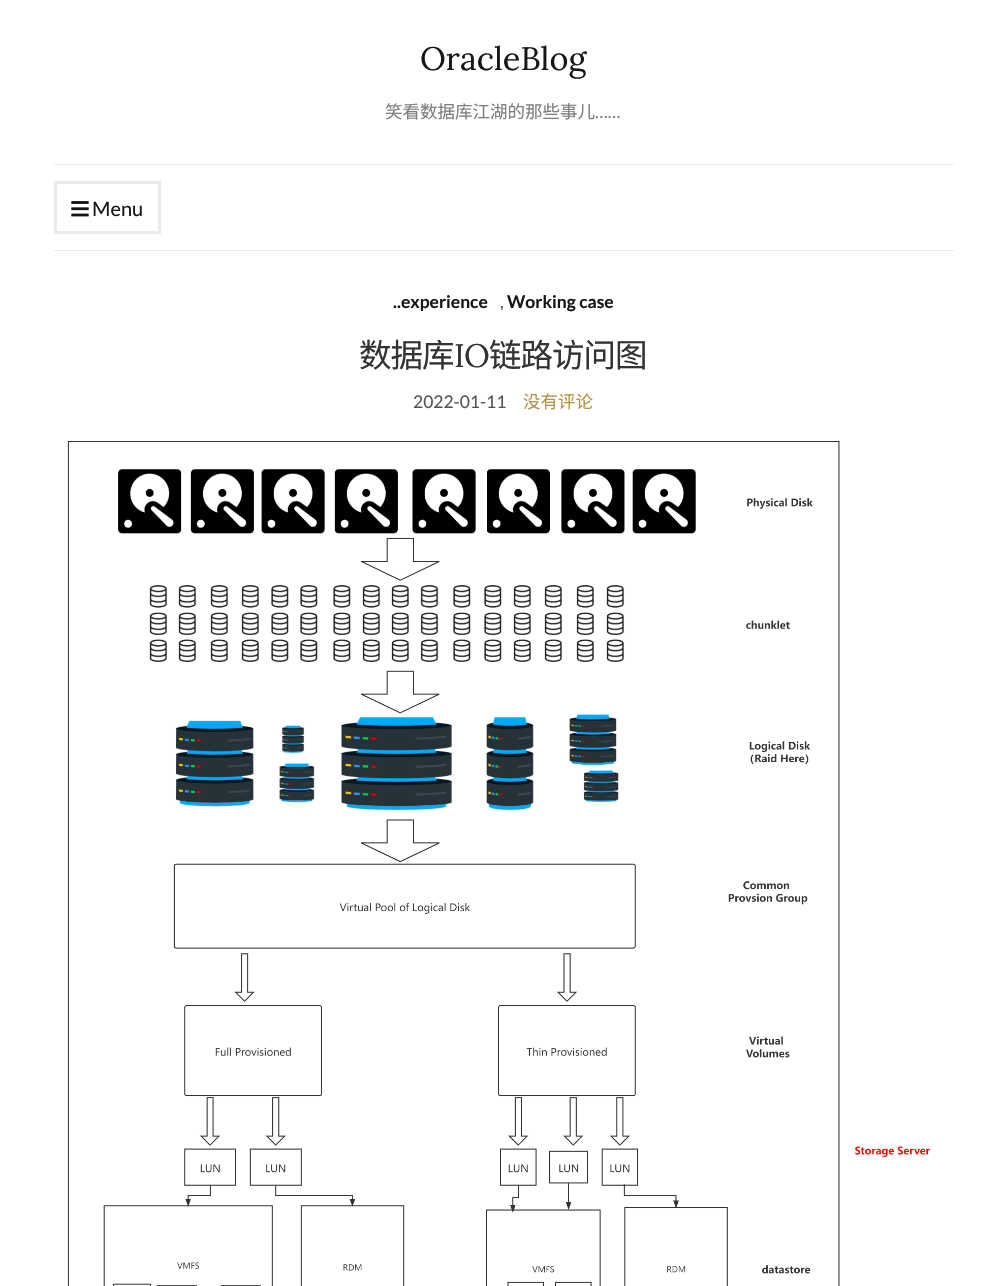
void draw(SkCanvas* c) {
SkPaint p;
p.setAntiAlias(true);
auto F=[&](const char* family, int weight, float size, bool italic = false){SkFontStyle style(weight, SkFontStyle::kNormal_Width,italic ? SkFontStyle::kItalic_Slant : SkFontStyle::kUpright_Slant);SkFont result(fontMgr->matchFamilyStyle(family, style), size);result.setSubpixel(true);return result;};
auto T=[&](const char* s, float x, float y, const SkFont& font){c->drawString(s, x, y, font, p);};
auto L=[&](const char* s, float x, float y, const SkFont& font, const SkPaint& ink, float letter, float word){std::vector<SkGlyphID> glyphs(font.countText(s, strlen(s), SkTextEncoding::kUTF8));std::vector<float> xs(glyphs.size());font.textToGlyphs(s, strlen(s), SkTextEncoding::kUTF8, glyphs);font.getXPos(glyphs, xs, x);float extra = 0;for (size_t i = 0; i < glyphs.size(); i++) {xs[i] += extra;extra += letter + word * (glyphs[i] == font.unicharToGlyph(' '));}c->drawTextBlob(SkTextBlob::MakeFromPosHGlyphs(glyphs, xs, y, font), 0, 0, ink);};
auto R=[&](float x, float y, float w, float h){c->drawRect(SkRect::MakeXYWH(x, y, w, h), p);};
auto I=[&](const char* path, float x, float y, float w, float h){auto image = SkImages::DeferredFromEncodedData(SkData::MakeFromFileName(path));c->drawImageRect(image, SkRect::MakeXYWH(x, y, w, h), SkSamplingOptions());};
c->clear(0xffffffff);
auto f1 = F("Lora",400,32.5);
p.setColor(0xff161616);
T("OracleBlog",420,70,f1);
auto f2 = F("Noto Sans CJK SC",400,17.5);
p.setColor(0xff7e7e7e);
T("笑看数据库江湖的那些事儿",385,118,f2);
auto f3 = F("Lato",400,17.5);
T("……",595,118,f3);
p.setColor(0xffebebeb);
R(54,164,900,1);
R(54,250,900,1);
p.setStroke(true);
p.setStrokeWidth(3);
c->drawRect(SkRect::MakeXYWH(55.5,182.5,104,50),p);
I("1.png",71,201,18,16);
auto f4 = F("Lato",400,20);
p.setStroke(false);
p.setColor(0xff161616);
T("Menu",92,216,f4);
auto f5 = F("Lato",700,17.5);
T("..experience",393,308,f5);
p.setColor(0xff545454);
T(",",500,308,f3);
p.setColor(0xff161616);
T("Working case",507,308,f5);
auto f6 = F("Noto Sans CJK SC",400,32.5);
p.setColor(0xff333333);
L("数据库",359,367,f6,p,-1,0);
L("IO",454,367,f1,p,-1,0);
L("链路访问图",489,367,f6,p,-1,0);
p.setColor(0xff545454);
T("2022-01-11",413,408,f3);
p.setColor(0xffb49543);
T("没有评论",523,408,f2);
I("2.png",67,441,863,845);
}
